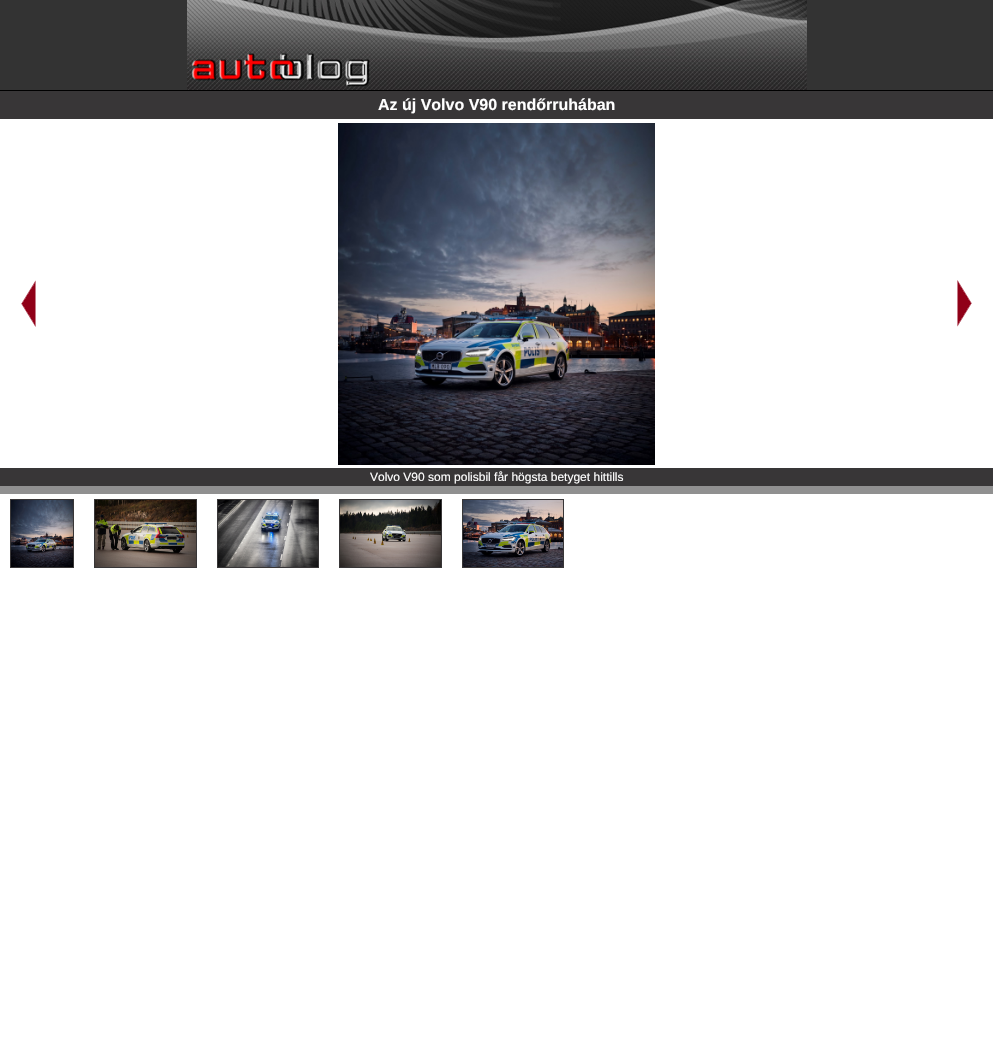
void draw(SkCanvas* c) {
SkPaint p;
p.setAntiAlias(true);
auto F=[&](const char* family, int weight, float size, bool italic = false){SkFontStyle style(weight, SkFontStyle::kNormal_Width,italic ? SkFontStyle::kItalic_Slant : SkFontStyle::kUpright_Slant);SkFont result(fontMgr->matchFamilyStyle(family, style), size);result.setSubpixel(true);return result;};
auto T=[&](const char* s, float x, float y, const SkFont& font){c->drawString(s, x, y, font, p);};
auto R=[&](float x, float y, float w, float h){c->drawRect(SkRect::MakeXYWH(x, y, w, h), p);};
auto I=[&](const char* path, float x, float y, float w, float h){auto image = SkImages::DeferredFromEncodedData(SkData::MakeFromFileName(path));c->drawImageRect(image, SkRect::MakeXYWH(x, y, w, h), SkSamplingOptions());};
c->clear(0xffffffff);
p.setColor(0xff333333);
R(0,0,993,90);
I("1.png",187,0,620,90);
p.setColor(0xff383637);
R(0,91,993,28);
p.setColor(0xff000000);
R(0,90,993,1);
auto f1 = F("Liberation Sans",700,16);
p.setColor(0xffffffff);
T("Az új Volvo V90 rendőrruhában",378,110,f1);
I("2.png",21,280,15,47);
I("3.png",338,123,317,342);
I("4.png",957,280,15,47);
p.setColor(0xff383637);
R(0,468,993,18);
auto f2 = F("Liberation Sans",400,12);
p.setColor(0xffffffff);
T("Volvo V90 som polisbil får högsta betyget hittills",370,481,f2);
p.setColor(0xff909090);
R(0,486,993,8);
p.setStroke(true);
p.setStrokeWidth(1);
p.setColor(0xff383637);
c->drawRect(SkRect::MakeXYWH(10.5,499.5,63,68),p);
I("5.png",11,500,62,67);
c->drawRect(SkRect::MakeXYWH(94.5,499.5,102,68),p);
I("6.png",95,500,101,67);
c->drawRect(SkRect::MakeXYWH(217.5,499.5,101,68),p);
I("7.png",218,500,100,67);
c->drawRect(SkRect::MakeXYWH(339.5,499.5,102,68),p);
I("8.png",340,500,101,67);
c->drawRect(SkRect::MakeXYWH(462.5,499.5,101,68),p);
I("9.png",463,500,100,67);
}
